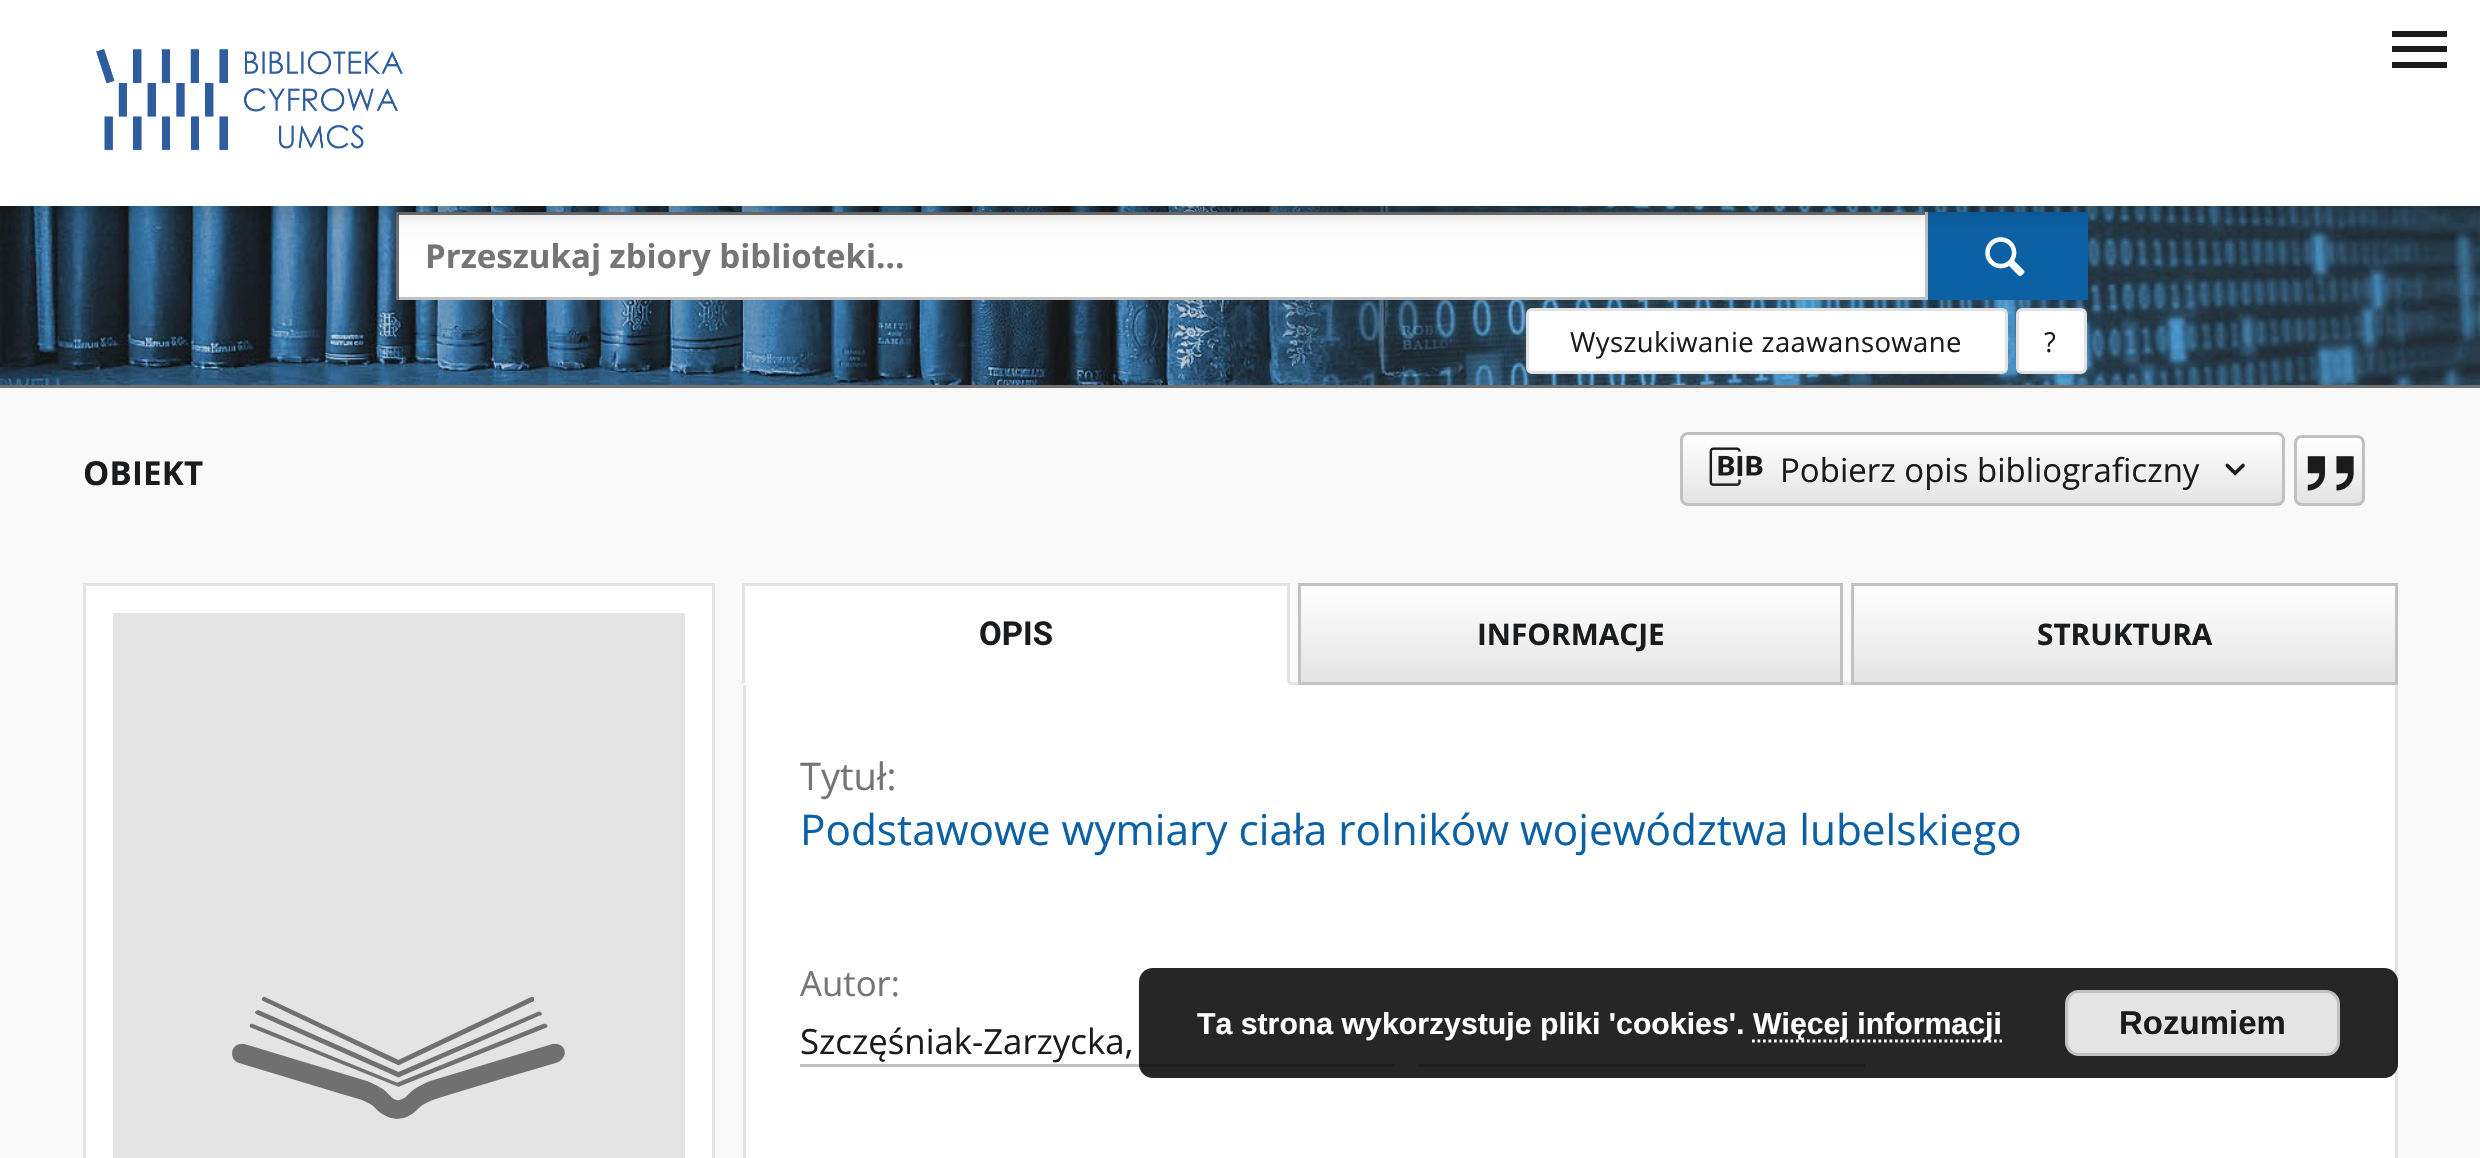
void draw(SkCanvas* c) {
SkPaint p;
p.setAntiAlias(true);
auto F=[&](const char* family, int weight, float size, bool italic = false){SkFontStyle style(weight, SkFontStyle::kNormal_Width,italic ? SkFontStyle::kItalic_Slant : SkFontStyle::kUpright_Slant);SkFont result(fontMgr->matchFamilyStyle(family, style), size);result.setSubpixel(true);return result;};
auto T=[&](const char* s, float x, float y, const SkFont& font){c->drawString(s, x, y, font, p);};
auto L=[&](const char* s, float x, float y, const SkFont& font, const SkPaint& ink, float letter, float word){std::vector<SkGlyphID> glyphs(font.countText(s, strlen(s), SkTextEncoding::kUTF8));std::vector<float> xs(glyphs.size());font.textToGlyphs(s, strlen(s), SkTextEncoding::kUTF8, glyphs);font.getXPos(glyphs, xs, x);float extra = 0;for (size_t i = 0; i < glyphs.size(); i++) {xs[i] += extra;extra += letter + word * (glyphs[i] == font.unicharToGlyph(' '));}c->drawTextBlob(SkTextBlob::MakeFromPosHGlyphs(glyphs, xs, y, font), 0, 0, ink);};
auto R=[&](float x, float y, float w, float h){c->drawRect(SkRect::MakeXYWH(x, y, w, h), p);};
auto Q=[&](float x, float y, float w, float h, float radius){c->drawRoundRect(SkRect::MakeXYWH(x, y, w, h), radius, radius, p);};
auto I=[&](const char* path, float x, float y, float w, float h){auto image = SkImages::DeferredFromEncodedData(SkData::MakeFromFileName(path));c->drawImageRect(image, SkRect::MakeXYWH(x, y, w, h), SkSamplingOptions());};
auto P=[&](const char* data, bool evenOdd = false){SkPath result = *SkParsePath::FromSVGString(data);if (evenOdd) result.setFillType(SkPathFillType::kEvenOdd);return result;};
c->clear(0xfff9f9f9);
I("2.png",0,206,2480,179);
p.setColor(0xffffffff);
R(399,215,1526,82);
p.setColor(0xff707070);
R(396,212,1532,3);
p.setColor(0xffc1c1c1);
R(1925,212,3,88);
R(396,297,1532,3);
p.setColor(0xff707070);
R(396,212,3,88);
p.setColor(0xff0c61a5);
R(1928,212,160,88);
I("3.png",1985,237,40,40);
p.setColor(0x14000000);
p.setMaskFilter(SkMaskFilter::MakeBlur(kNormal_SkBlurStyle, 14));
c->drawRect(SkRect::MakeXYWH(0,3,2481,206),p);
p.setMaskFilter(nullptr);
p.setColor(0x0f000000);
p.setMaskFilter(SkMaskFilter::MakeBlur(kNormal_SkBlurStyle, 7));
c->drawRect(SkRect::MakeXYWH(0,11,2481,206),p);
p.setMaskFilter(nullptr);
p.setMaskFilter(SkMaskFilter::MakeBlur(kNormal_SkBlurStyle, 5.5));
c->drawRect(SkRect::MakeXYWH(3,8,2475,201),p);
p.setMaskFilter(nullptr);
p.setColor(0xffffffff);
R(0,0,2480,206);
I("1.png",96,49,307,102);
p.setColor(0xff1a1b1c);
c->drawPath(P("M2447 37h-55v-6h55zm0 9h-55v6h55zm0 16h-55v6h55z"),p);
p.setColor(0xff707070);
R(0,385,2480,3);
auto f1 = F("Open Sans",700,33);
p.setColor(0xff757575);
T("Przeszukaj zbiory biblioteki...",425,268,f1);
p.setColor(0xffffffff);
c->drawRoundRect(SkRect::MakeXYWH(1527.5,309.5,479,63),4.5,4.5,p);
p.setStroke(true);
p.setStrokeWidth(3);
p.setColor(0xffe2e2e2);
c->drawRoundRect(SkRect::MakeXYWH(1527.5,309.5,479,63),4.5,4.5,p);
auto f2 = F("Open Sans",400,27.5);
p.setStroke(false);
p.setColor(0xff1a1b1c);
L("Wyszukiwanie zaawansowane",1570,352,f2,p,.4,0);
p.setColor(0xffffffff);
c->drawRoundRect(SkRect::MakeXYWH(2017.5,309.5,68,63),4.5,4.5,p);
p.setStroke(true);
p.setColor(0xffe2e2e2);
c->drawRoundRect(SkRect::MakeXYWH(2017.5,309.5,68,63),4.5,4.5,p);
p.setStroke(false);
p.setColor(0xff1a1b1c);
T("?",2044,352,f2);
L("OBIEKT",83,485,f1,p,.25,0);
c->save();
c->clipPath(P("M1688 432h589c4.5 0 8 3.5 8 8v58c0 4.5-3.5 8-8 8h-589c-4.5 0-8-3.5-8-8v-58c0-4.5 3.5-8 8-8z"),true);
{
const SkColor colors[] = {0xffffffff,0xffe4e4e4};
const float stops[] = {0,1};
const SkPoint ends[] = {{1983,435}, {1983,503}};
p.setShader(SkGradientShader::MakeLinear(ends, colors, stops, 2, SkTileMode::kClamp));
p.setAlpha(255);
}
R(1680,435,605,68);
c->restore();
p.setStroke(true);
p.setShader(nullptr);
p.setColor(0xffc1c1c1);
c->drawRoundRect(SkRect::MakeXYWH(1681.5,433.5,602,71),6.5,6.5,p);
I("4.png",1709,447,54,39);
auto f3 = F("Open Sans",400,33);
p.setStroke(false);
p.setColor(0xff1a1b1c);
T("Pobierz opis bibliograficzny",1780,482,f3);
I("5.png",2225,463,20,13);
c->save();
c->clipPath(P("M2302 435h55c4.5 0 8 3.5 8 8v55c0 4.5-3.5 8-8 8h-55c-4.5 0-8-3.5-8-8v-55c0-4.5 3.5-8 8-8z"),true);
{
const SkColor colors[] = {0xffffffff,0xffe4e4e4};
const float stops[] = {0,1};
const SkPoint ends[] = {{2329,437}, {2329,503}};
p.setShader(SkGradientShader::MakeLinear(ends, colors, stops, 2, SkTileMode::kClamp));
p.setAlpha(255);
}
R(2294,437,71,66);
c->restore();
p.setStroke(true);
p.setShader(nullptr);
p.setColor(0xffc1c1c1);
c->drawRoundRect(SkRect::MakeXYWH(2295.5,436.5,68,68),6.5,6.5,p);
I("6.png",2307,456,47,35);
p.setStroke(false);
p.setColor(0xffffffff);
c->drawRect(SkRect::MakeXYWH(84.5,584.5,629,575),p);
p.setStroke(true);
p.setColor(0xffe4e4e4);
c->drawRect(SkRect::MakeXYWH(84.5,584.5,629,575),p);
p.setStroke(false);
R(113,613,572,545);
I("7.png",232,996,333,123);
R(1290,682,561,3);
p.setColor(0xffffffff);
R(743,586,547,99);
p.setColor(0xffe4e4e4);
R(743,583,547,3);
c->drawPath(P("M1290 583v102l-3-3v-96z"),p);
c->drawPath(P("M742 685v-102l3 3v96z"),p);
auto f4 = F("Roboto",700,33);
p.setColor(0xff1a1b1c);
T("OPIS",979,645,f4);
{
const SkColor colors[] = {0xffffffff,0xffe4e4e4};
const float stops[] = {0,1};
const SkPoint ends[] = {{1570,586}, {1570,682}};
p.setShader(SkGradientShader::MakeLinear(ends, colors, stops, 2, SkTileMode::kClamp));
p.setAlpha(255);
}
R(1301,586,539,96);
p.setStroke(true);
p.setShader(nullptr);
p.setColor(0xffc1c1c1);
c->drawRect(SkRect::MakeXYWH(1299.5,584.5,542,99),p);
auto f5 = F("Open Sans",700,29.75);
p.setStroke(false);
p.setColor(0xff1a1b1c);
T("INFORMACJE",1477,645,f5);
{
const SkColor colors[] = {0xffffffff,0xffe4e4e4};
const float stops[] = {0,1};
const SkPoint ends[] = {{2124,586}, {2124,682}};
p.setShader(SkGradientShader::MakeLinear(ends, colors, stops, 2, SkTileMode::kClamp));
p.setAlpha(255);
}
R(1854,586,541,96);
p.setStroke(true);
p.setShader(nullptr);
p.setColor(0xffc1c1c1);
c->drawRect(SkRect::MakeXYWH(1852.5,584.5,544,99),p);
p.setStroke(false);
p.setColor(0xff1a1b1c);
T("STRUKTURA",2037,645,f5);
p.setColor(0xffffffff);
R(746,685,1649,473);
p.setColor(0xffe4e4e4);
R(2395,685,3,473);
R(743,685,3,473);
auto f6 = F("Open Sans",400,38);
p.setColor(0xff757575);
T("Tytuł:",800,790,f6);
auto f7 = F("Open Sans",400,42.35);
p.setColor(0xff0c61a5);
T("Podstawowe wymiary ciała rolników województwa lubelskiego",800,845,f7);
auto f8 = F("Open Sans",400,34.75);
p.setColor(0xff757575);
T("Autor:",800,996,f8);
p.setColor(0xff1a1b1c);
T("Szczęśniak-Zarzycka,",800,1054,f8);
p.setColor(0xffc1c1c1);
R(800,1064,594,3);
R(1419,1064,446,3);
p.setColor(0xd9000000);
Q(1139,968,1259,110,14);
auto f9 = F("Liberation Sans",700,30.25);
p.setColor(0xffffffff);
T("Ta strona wykorzystuje pliki 'cookies'.",1197,1034,f9);
p.setStroke(true);
p.setStrokeWidth(2.8);
p.setPathEffect(SkDashPathEffect::Make({{2.75f,2.75f}}, 0));
c->drawPath(P("M1752 1041h250"),p);
p.setPathEffect(nullptr);
p.setStroke(false);
T("Więcej informacji",1753,1034,f9);
p.setColor(0xffe4e4e4);
c->drawRoundRect(SkRect::MakeXYWH(2066.5,991.5,272,63),12.5,12.5,p);
p.setStroke(true);
p.setStrokeWidth(3);
p.setColor(0xffc1c1c1);
c->drawRoundRect(SkRect::MakeXYWH(2066.5,991.5,272,63),12.5,12.5,p);
auto f10 = F("Liberation Sans",700,33);
p.setStroke(false);
p.setColor(0xff1a1b1c);
T("Rozumiem",2119,1034,f10);
}
